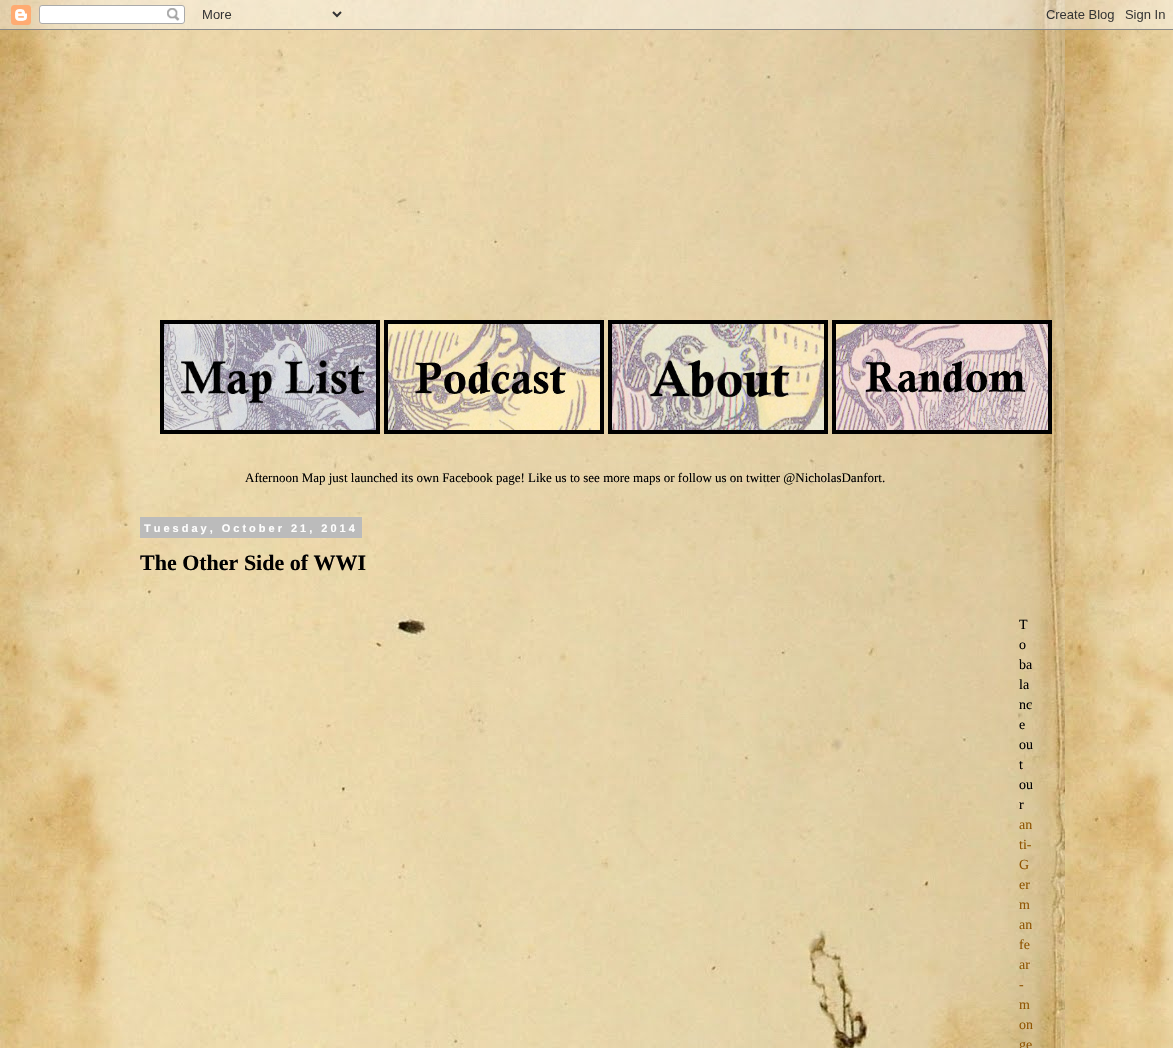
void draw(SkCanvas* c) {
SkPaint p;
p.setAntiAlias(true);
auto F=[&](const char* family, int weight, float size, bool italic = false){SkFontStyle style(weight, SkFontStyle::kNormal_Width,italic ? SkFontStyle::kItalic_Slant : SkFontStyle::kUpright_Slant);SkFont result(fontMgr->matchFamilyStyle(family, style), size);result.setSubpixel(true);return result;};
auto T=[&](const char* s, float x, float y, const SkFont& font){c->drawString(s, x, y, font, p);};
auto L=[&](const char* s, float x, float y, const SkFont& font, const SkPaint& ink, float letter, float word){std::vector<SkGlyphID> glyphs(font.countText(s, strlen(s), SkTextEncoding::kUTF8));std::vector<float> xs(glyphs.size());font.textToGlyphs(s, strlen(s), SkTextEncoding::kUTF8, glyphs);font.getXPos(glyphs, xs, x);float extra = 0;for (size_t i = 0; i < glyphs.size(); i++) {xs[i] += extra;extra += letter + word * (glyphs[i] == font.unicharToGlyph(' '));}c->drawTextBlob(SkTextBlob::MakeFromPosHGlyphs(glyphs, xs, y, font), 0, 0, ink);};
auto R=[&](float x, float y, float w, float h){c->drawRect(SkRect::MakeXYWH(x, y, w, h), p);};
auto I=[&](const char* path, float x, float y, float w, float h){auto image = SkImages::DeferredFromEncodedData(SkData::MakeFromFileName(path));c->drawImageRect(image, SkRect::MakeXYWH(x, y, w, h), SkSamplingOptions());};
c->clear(0xffffffff);
I("1.png",0,0,1173,1048);
I("2.png",0,0,1173,30);
p.setStroke(true);
p.setStrokeWidth(4);
p.setColor(0xff000000);
c->drawRect(SkRect::MakeXYWH(162,322,216,110),p);
I("3.png",164,324,212,106);
c->drawRect(SkRect::MakeXYWH(386,322,216,110),p);
I("4.png",388,324,212,106);
c->drawRect(SkRect::MakeXYWH(610,322,216,110),p);
I("5.png",612,324,212,106);
c->drawRect(SkRect::MakeXYWH(834,322,216,110),p);
I("6.png",836,324,212,106);
auto f1 = F("Liberation Serif",400,13);
p.setStroke(false);
T("Afternoon Map just launched its own Facebook page! Like us to see more maps or follow us on twitter @NicholasDanfort.",245,482,f1);
p.setColor(0xffbbbbbb);
R(140,517,222,21);
auto f2 = F("Liberation Sans",700,11);
p.setColor(0xffffffff);
L("Tuesday, October 21, 2014",144,532,f2,p,3,0);
auto f3 = F("Liberation Serif",700,22);
p.setColor(0xff000000);
T("The Other Side of WWI",140,570,f3);
auto f4 = F("Liberation Serif",400,14);
T("T",1019,629,f4);
T("o",1019,649,f4);
T("ba",1019,669,f4);
T("la",1019,689,f4);
T("nc",1019,709,f4);
T("e",1019,729,f4);
T("ou",1019,749,f4);
T("t",1019,769,f4);
T("ou",1019,789,f4);
T("r",1019,809,f4);
p.setColor(0xff905502);
T("an",1019,829,f4);
T("ti-",1019,849,f4);
T("G",1019,869,f4);
T("er",1019,889,f4);
T("m",1019,909,f4);
T("an",1019,929,f4);
T("fe",1019,949,f4);
T("ar",1019,969,f4);
T("-",1019,989,f4);
T("m",1019,1009,f4);
T("on",1019,1029,f4);
T("ge",1019,1049,f4);
}
